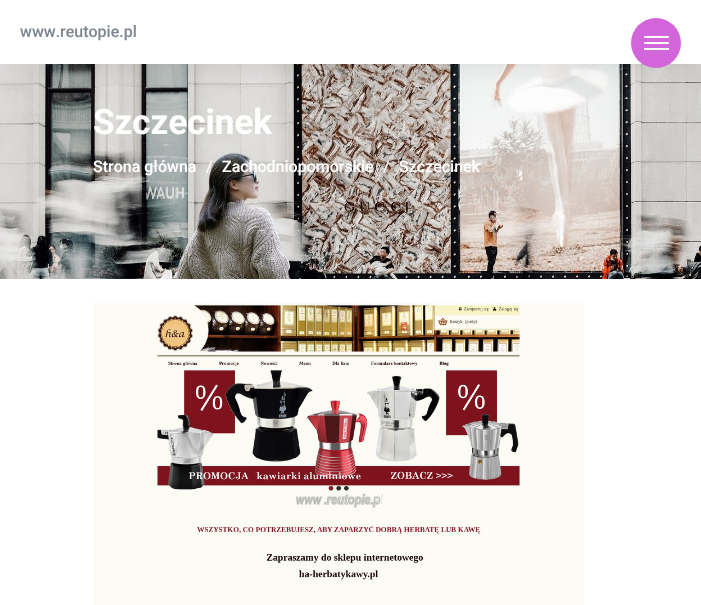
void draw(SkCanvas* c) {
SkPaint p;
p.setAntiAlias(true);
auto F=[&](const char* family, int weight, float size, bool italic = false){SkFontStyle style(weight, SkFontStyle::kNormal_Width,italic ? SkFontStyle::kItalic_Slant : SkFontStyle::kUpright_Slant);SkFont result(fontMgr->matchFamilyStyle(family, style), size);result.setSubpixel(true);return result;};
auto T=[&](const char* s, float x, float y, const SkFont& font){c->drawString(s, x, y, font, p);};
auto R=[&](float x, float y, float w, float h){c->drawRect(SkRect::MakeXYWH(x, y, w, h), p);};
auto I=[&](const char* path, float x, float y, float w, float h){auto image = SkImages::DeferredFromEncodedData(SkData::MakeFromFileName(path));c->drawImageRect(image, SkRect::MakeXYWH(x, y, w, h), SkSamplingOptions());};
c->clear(0xffffffff);
I("1.png",0,64,701,215);
p.setColor(0x17000000);
p.setMaskFilter(SkMaskFilter::MakeBlur(kNormal_SkBlurStyle, 12.5));
c->drawRect(SkRect::MakeXYWH(-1,2,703,66),p);
p.setMaskFilter(nullptr);
p.setColor(0xffffffff);
R(0,0,701,64);
auto f1 = F("Roboto",500,16);
p.setColor(0xff818790);
T("www.reutopie.pl",20,37,f1);
p.setColor(0xffd365da);
c->drawCircle(656,43,25,p);
p.setColor(0xffffffff);
R(644,36,25,2);
R(644,42,25,2);
R(644,48,25,2);
auto f2 = F("Roboto",700,35);
T("Szczecinek",93,134,f2);
T("Strona główna",93,172,f1);
auto f3 = F("Roboto",400,16);
T("/",206,172,f3);
T("Zachodniopomorskie",222,172,f1);
T("/",383,172,f3);
T("Szczecinek",399,172,f1);
I("2.png",93,303,491,302);
}
